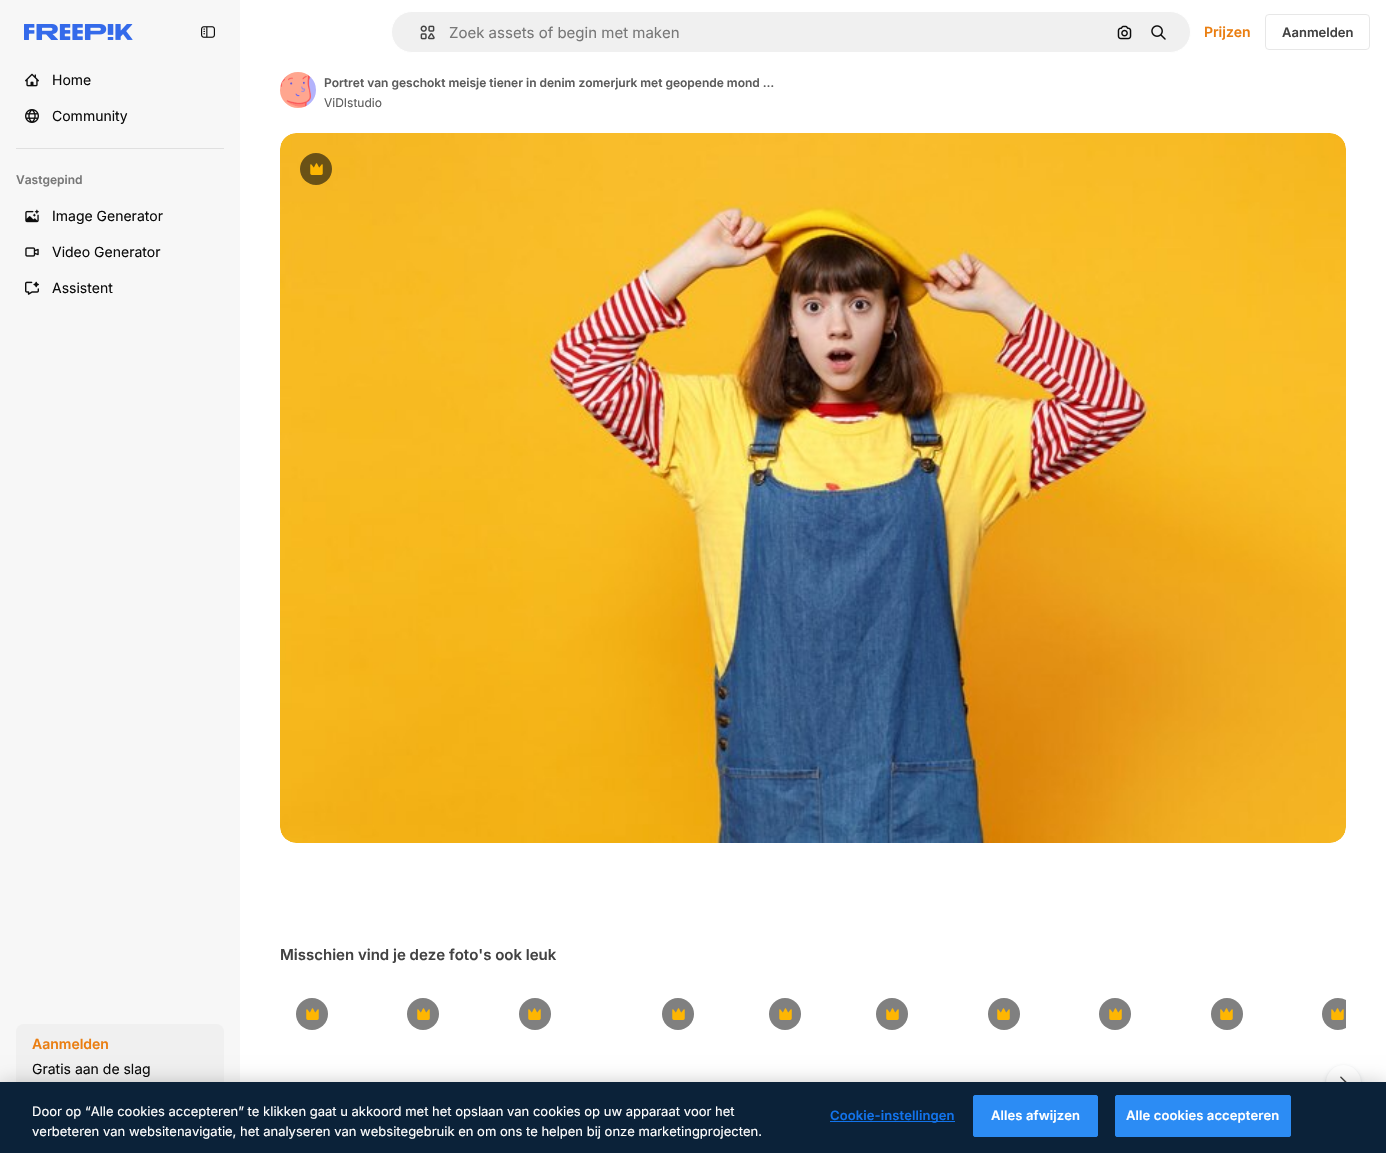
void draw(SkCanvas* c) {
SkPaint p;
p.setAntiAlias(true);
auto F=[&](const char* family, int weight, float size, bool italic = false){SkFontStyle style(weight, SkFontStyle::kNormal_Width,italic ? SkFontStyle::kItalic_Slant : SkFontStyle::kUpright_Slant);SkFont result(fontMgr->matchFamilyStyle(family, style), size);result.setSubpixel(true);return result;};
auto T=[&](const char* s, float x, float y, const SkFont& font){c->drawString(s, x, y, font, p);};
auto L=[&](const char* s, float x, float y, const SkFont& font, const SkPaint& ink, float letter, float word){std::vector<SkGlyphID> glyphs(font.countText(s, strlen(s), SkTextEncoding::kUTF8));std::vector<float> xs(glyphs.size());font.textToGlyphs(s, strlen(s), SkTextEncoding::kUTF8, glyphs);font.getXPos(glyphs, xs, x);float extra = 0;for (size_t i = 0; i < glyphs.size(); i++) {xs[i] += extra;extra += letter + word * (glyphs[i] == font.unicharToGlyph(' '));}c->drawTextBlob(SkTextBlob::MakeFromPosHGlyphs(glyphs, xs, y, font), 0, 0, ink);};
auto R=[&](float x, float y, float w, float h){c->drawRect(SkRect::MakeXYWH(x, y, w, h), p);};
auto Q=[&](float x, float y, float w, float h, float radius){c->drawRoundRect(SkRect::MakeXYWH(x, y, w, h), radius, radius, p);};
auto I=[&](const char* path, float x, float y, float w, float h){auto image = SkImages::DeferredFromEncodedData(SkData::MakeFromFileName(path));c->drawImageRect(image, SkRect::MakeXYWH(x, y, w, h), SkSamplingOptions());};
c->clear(0xffffffff);
p.setColor(0xfff7f7f7);
R(0,0,240,1082);
I("1.png",24,24,109,16);
I("2.png",201,26,14,12);
I("3.png",25,73,14,14);
auto f1 = F("Inter",400,14);
p.setColor(0xff0d0d0d);
T("Home",52,85,f1);
I("4.png",25,109,14,14);
T("Community",52,121,f1);
p.setColor(0xffe0e0e0);
R(16,148,208,1);
auto f2 = F("Inter",600,12);
p.setColor(0xff787878);
T("Vastgepind",16,184,f2);
I("5.png",25,209,14,14);
p.setColor(0xff0d0d0d);
T("Image Generator",52,221,f1);
I("6.png",25,247,14,10);
T("Video Generator",52,257,f1);
I("7.png",25,281,14,14);
T("Assistent",52,293,f1);
p.setColor(0xfff0f0f0);
Q(16,1024,208,65,8);
auto f3 = F("Inter",600,14);
p.setColor(0xffea7e11);
T("Aanmelden",32,1049,f3);
p.setColor(0xff0d0d0d);
T("Gratis aan de slag",32,1074,f1);
p.setColor(0xfff0f0f0);
c->drawRoundRect(SkRect::MakeXYWH(391.5,11.5,799,41),20.5,20.5,p);
p.setStroke(true);
p.setStrokeWidth(1);
p.setColor(0xffffffff);
c->drawRoundRect(SkRect::MakeXYWH(391.5,11.5,799,41),20.5,20.5,p);
I("8.png",420,25,15,15);
auto f4 = F("Inter",400,15);
p.setStroke(false);
p.setColor(0xff787878);
T("Zoek assets of begin met maken",449,38,f4);
I("9.png",1117,25,15,15);
I("10.png",1151,25,15,15);
p.setColor(0xffea7e11);
T("Prijzen",1204,37,f3);
p.setStroke(true);
p.setColor(0xffe7e7e7);
c->drawRoundRect(SkRect::MakeXYWH(1265.5,14.5,104,35),3.5,3.5,p);
auto f5 = F("Inter",600,13);
p.setStroke(false);
p.setColor(0xff424242);
T("Aanmelden",1282,37,f5);
I("11.png",280,72,36,36);
p.setColor(0xff5c5c5c);
T("Portret van geschokt meisje tiener in denim zomerjurk met geopende mond …",324,87,f2);
auto f6 = F("Inter",400,12);
T("ViDIstudio",324,107,f6);
I("12.png",280,133,1066,710);
p.setColor(0x990d0d0d);
c->drawCircle(316,169,16,p);
I("13.png",310,163,13,12);
auto f7 = F("Inter",600,15);
p.setColor(0xff424242);
T("Misschien vind je deze foto's ook leuk",280,960,f7);
p.setColor(0xff808080);
c->drawCircle(312,1014,16,p);
I("14.png",306,1008,13,12);
c->drawCircle(423,1014,16,p);
I("14.png",417,1008,13,12);
c->drawCircle(535,1014,16,p);
I("14.png",528,1008,13,12);
c->drawCircle(678,1014,16,p);
I("14.png",672,1008,13,12);
c->drawCircle(785,1014,16,p);
I("14.png",779,1008,13,12);
c->drawCircle(892,1014,16,p);
I("14.png",886,1008,13,12);
c->drawCircle(1004,1014,16,p);
I("14.png",997,1008,13,12);
c->drawCircle(1115,1014,16,p);
I("14.png",1109,1008,13,12);
c->drawCircle(1227,1014,16,p);
I("14.png",1220,1008,13,12);
c->save();
c->clipRect(SkRect::MakeXYWH(280,982,1066,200));
c->drawCircle(1338,1014,16,p);
c->restore();
I("14.png",1331,1008,13,12);
p.setColor(0x26374957);
p.setMaskFilter(SkMaskFilter::MakeBlur(kNormal_SkBlurStyle, 2.5));
c->drawRoundRect(SkRect::MakeXYWH(1326,1067,35,35),17.5,17.5,p);
p.setMaskFilter(nullptr);
p.setColor(0x1a374957);
p.setMaskFilter(SkMaskFilter::MakeBlur(kNormal_SkBlurStyle, 1));
c->drawRoundRect(SkRect::MakeXYWH(1326,1066,35,35),17.5,17.5,p);
p.setMaskFilter(nullptr);
p.setColor(0xffffffff);
c->drawCircle(1343.5,1082.5,17.5,p);
I("15.png",1340,1076,7,6);
p.setColor(0x33000000);
p.setMaskFilter(SkMaskFilter::MakeBlur(kNormal_SkBlurStyle, 9));
c->drawRect(SkRect::MakeXYWH(0,1082,1386,71),p);
p.setMaskFilter(nullptr);
p.setColor(0xff0b2239);
R(0,1082,1386,71);
auto f8 = F("Inter",400,13);
p.setColor(0xffffffff);
T("Door op “Alle cookies accepteren” te klikken gaat u akkoord met het opslaan van cookies op uw apparaat voor het",32,1116,f8);
T("verbeteren van websitenavigatie, het analyseren van websitegebruik en om ons te helpen bij onze marketingprojecten.",32,1136,f8);
p.setColor(0xff1273eb);
R(830,1121,125,1);
L("Cookie-instellingen",830,1120,f5,p,.1,0);
p.setColor(0xff2c8cf4);
c->drawRoundRect(SkRect::MakeXYWH(973.5,1095.5,124,41),1.5,1.5,p);
p.setStroke(true);
c->drawRoundRect(SkRect::MakeXYWH(973.5,1095.5,124,41),1.5,1.5,p);
p.setStroke(false);
p.setColor(0xffffffff);
L("Alles afwijzen",991,1120,f5,p,.1,0);
p.setColor(0xff2c8cf4);
c->drawRoundRect(SkRect::MakeXYWH(1115.5,1095.5,175,41),1.5,1.5,p);
p.setStroke(true);
c->drawRoundRect(SkRect::MakeXYWH(1115.5,1095.5,175,41),1.5,1.5,p);
p.setStroke(false);
p.setColor(0xffffffff);
L("Alle cookies accepteren",1126,1120,f5,p,.1,0);
}
